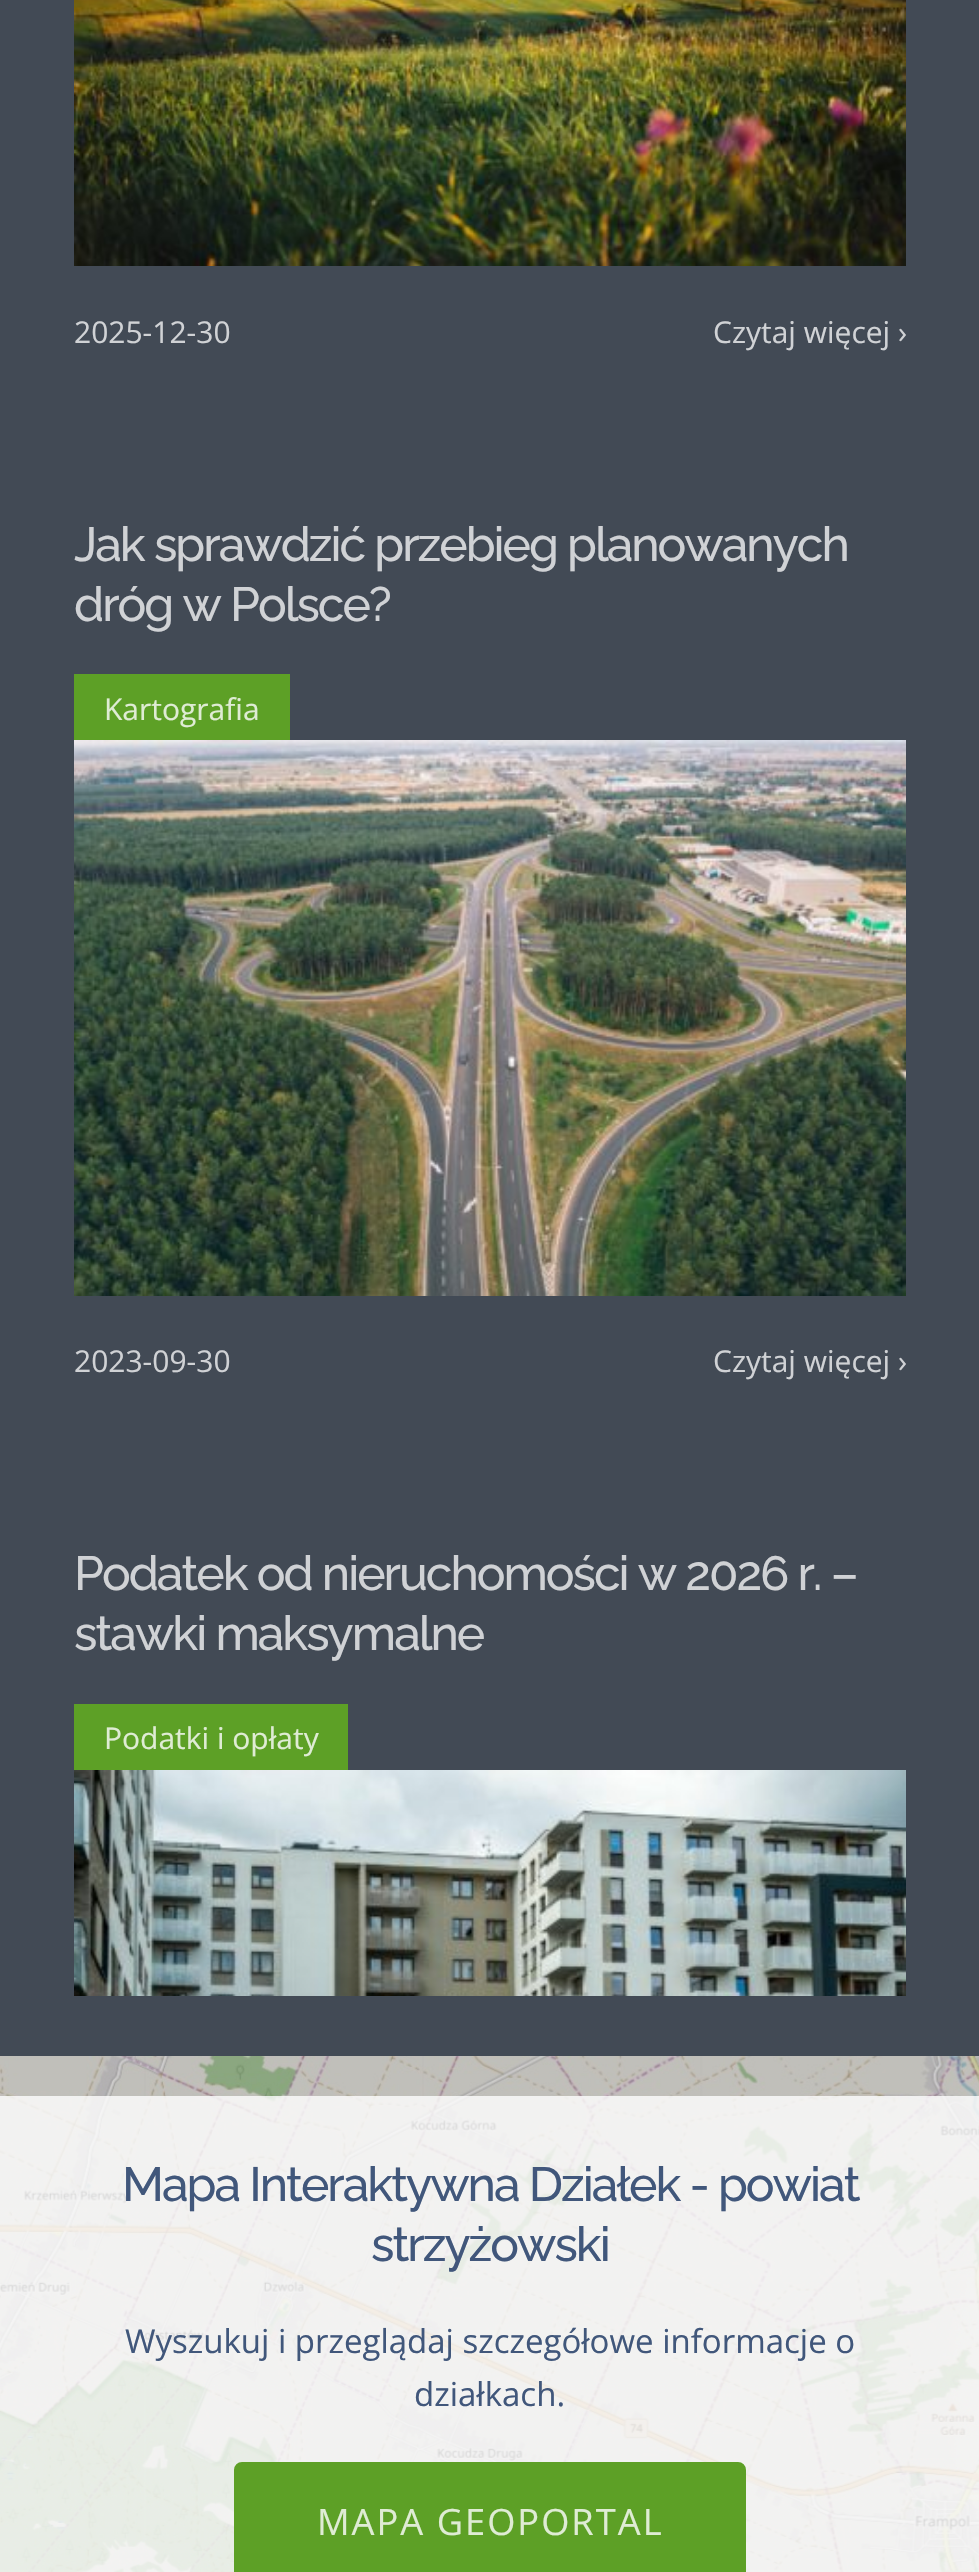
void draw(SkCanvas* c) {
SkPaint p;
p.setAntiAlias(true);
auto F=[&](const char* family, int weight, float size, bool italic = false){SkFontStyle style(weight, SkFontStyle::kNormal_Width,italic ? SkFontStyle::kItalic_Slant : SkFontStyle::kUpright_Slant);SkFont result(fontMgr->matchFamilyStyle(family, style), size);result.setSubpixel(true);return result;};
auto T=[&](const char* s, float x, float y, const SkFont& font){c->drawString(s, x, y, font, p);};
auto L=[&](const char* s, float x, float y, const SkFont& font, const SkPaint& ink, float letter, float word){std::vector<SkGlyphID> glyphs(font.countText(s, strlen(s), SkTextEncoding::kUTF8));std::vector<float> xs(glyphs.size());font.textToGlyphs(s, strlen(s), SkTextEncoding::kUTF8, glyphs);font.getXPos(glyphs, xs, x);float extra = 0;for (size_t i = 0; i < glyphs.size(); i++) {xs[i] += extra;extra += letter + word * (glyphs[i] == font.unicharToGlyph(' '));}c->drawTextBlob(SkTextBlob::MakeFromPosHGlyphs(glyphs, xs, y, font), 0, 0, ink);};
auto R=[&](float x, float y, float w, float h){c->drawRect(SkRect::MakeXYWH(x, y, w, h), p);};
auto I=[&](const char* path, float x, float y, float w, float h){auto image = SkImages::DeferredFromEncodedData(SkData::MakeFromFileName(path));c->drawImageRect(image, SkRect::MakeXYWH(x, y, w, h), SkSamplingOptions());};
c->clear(0xff424a55);
I("1.png",74,0,832,266);
auto f1 = F("Open Sans",400,30);
p.setColor(0xffd0d2d5);
T("2025-12-30",74,343,f1);
T("Czytaj więcej ›",713,343,f1);
auto f2 = F("Raleway",500,48);
L("Jak sprawdzić przebieg planowanych",74,561,f2,p,-2,0);
L("dróg w Polsce?",74,621,f2,p,-2,0);
p.setColor(0xff5da026);
R(74,674,216,66);
p.setColor(0xffdfecd4);
T("Kartografia",104,720,f1);
I("2.png",74,740,832,556);
p.setColor(0xffd0d2d5);
T("2023-09-30",74,1372,f1);
T("Czytaj więcej ›",713,1372,f1);
L("Podatek od nieruchomości w 2026 r. –",74,1590,f2,p,-2,0);
L("stawki maksymalne",74,1650,f2,p,-2,0);
p.setColor(0xff5da026);
R(74,1704,274,66);
p.setColor(0xffdfecd4);
T("Podatki i opłaty",104,1749,f1);
I("3.png",74,1770,832,226);
I("4.png",0,2056,979,516);
p.setColor(0xff41577b);
L("Mapa Interaktywna Działek - powiat",122,2201,f2,p,-2,0);
L("strzyżowski",371,2261,f2,p,-2,0);
auto f3 = F("Open Sans",400,33);
T("Wyszukuj i przeglądaj szczegółowe informacje o",125,2353,f3);
T("działkach.",414,2406,f3);
p.setColor(0xff5da026);
c->drawRoundRect(SkRect::MakeXYWH(235,2463,510,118),7,7,p);
p.setStroke(true);
p.setStrokeWidth(2);
c->drawRoundRect(SkRect::MakeXYWH(235,2463,510,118),7,7,p);
auto f4 = F("Open Sans",400,36.25);
p.setStroke(false);
p.setColor(0xffdfecd4);
L("MAPA GEOPORTAL",317,2535,f4,p,2,0);
}
